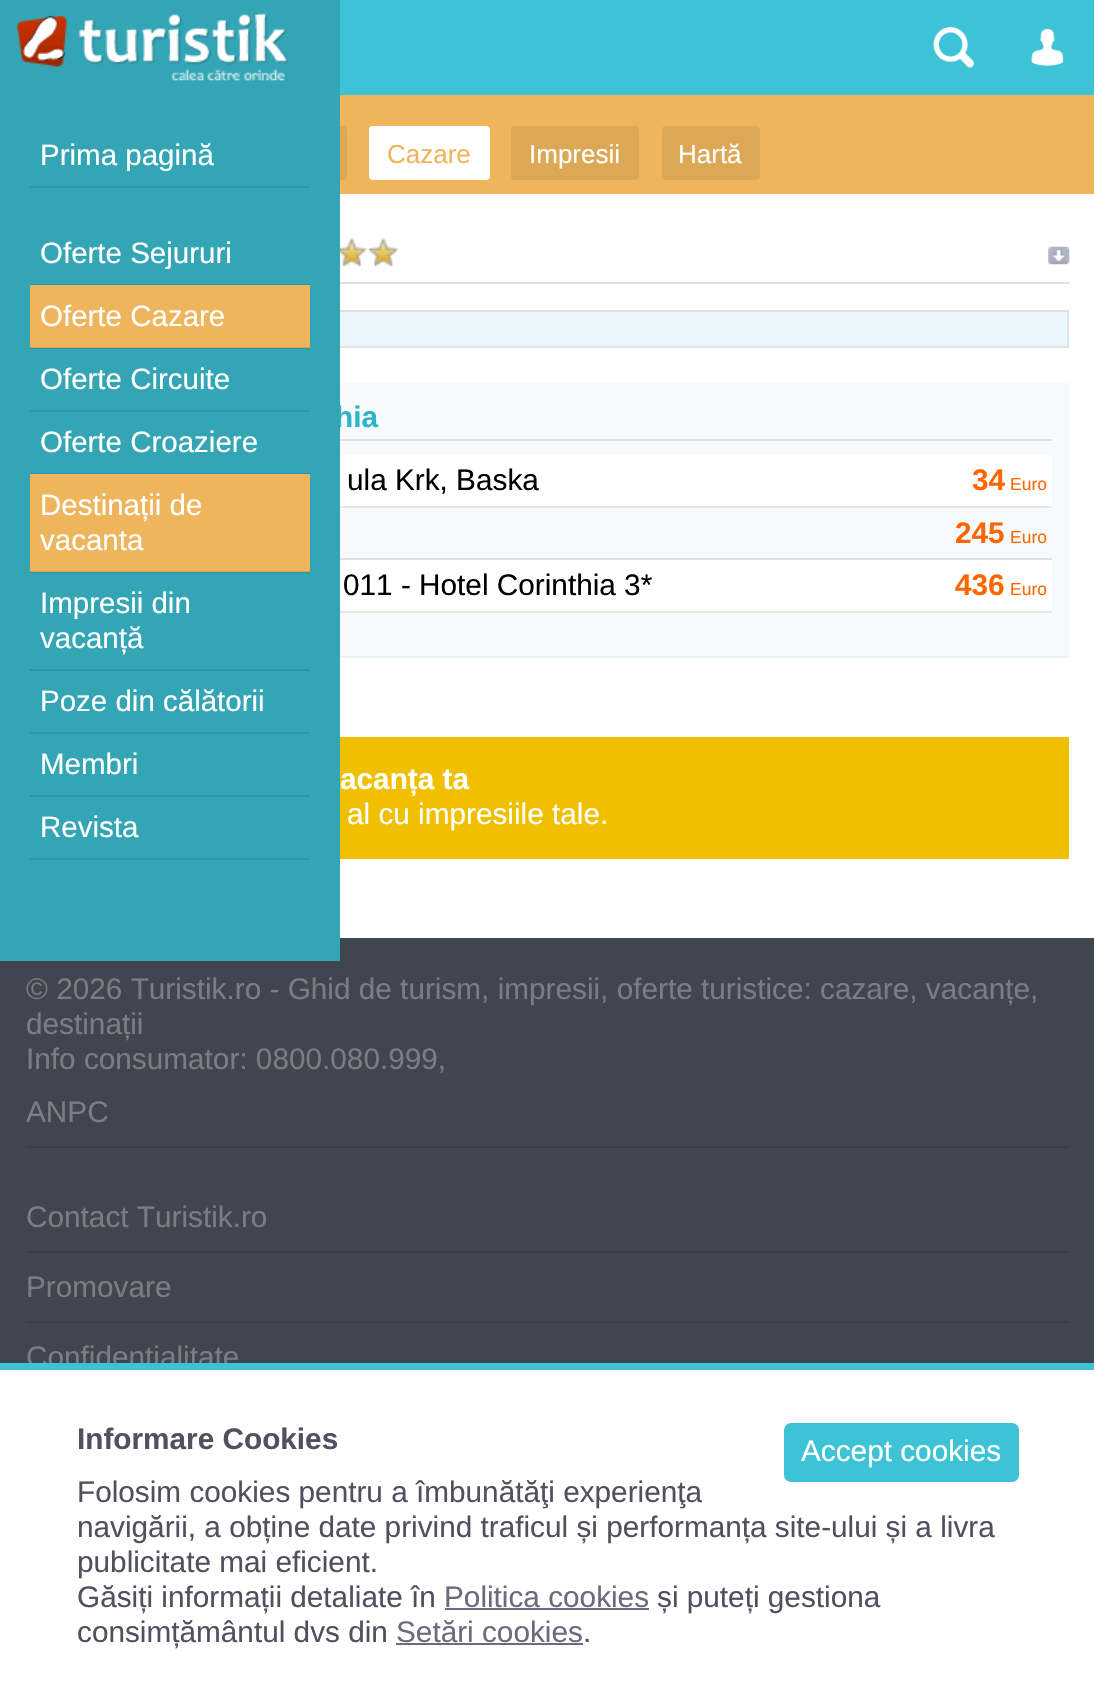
void draw(SkCanvas* c) {
SkPaint p;
p.setAntiAlias(true);
auto F=[&](const char* family, int weight, float size, bool italic = false){SkFontStyle style(weight, SkFontStyle::kNormal_Width,italic ? SkFontStyle::kItalic_Slant : SkFontStyle::kUpright_Slant);SkFont result(fontMgr->matchFamilyStyle(family, style), size);result.setSubpixel(true);return result;};
auto T=[&](const char* s, float x, float y, const SkFont& font){c->drawString(s, x, y, font, p);};
auto R=[&](float x, float y, float w, float h){c->drawRect(SkRect::MakeXYWH(x, y, w, h), p);};
auto Q=[&](float x, float y, float w, float h, float radius){c->drawRoundRect(SkRect::MakeXYWH(x, y, w, h), radius, radius, p);};
auto I=[&](const char* path, float x, float y, float w, float h){auto image = SkImages::DeferredFromEncodedData(SkData::MakeFromFileName(path));c->drawImageRect(image, SkRect::MakeXYWH(x, y, w, h), SkSamplingOptions());};
c->clear(0xffffffff);
p.setColor(0xff3ec3d6);
R(340,0,754,95);
I("1.png",933,27,41,41);
I("2.png",1031,28,33,38);
p.setColor(0xffeeb55c);
R(340,95,754,99);
p.setColor(0xffdda856);
Q(222,126,125,54,4);
p.setColor(0xffebf6fc);
R(340,312,727,34);
p.setStroke(true);
p.setStrokeWidth(2);
p.setColor(0xffdfe1e8);
c->drawRect(SkRect::MakeXYWH(27,311,1041,36),p);
p.setStroke(false);
p.setColor(0xfff7fafd);
R(340,383,729,273);
auto f1 = F("Liberation Sans",700,29.75);
p.setColor(0xff2bb5c8);
T("hia",335,427,f1);
p.setColor(0xff3f464f);
R(0,938,1094,425);
p.setColor(0xff34a5b5);
R(0,0,340,961);
I("3.png",17,13,272,68);
p.setColor(0xff2f95a3);
R(30,572,280,1);
R(30,186,280,2);
auto f2 = F("Liberation Sans",400,29.5);
p.setColor(0xffffffff);
T("Prima pagină",40,165,f2);
p.setColor(0xff2f95a3);
R(30,284,280,1);
p.setColor(0xffffffff);
T("Oferte Sejururi",40,263,f2);
p.setColor(0xffeeb55c);
R(30,285,280,63);
p.setColor(0x1a000000);
R(30,347,280,2);
p.setColor(0xffffffff);
T("Oferte Cazare",40,326,f2);
p.setColor(0xff2f95a3);
R(30,410,280,2);
p.setColor(0xffffffff);
T("Oferte Circuite",40,389,f2);
p.setColor(0xff2f95a3);
R(30,473,280,1);
p.setColor(0xffffffff);
T("Oferte Croaziere",40,452,f2);
p.setColor(0xffeeb55c);
R(30,474,280,97);
p.setColor(0xffd6a353);
R(30,571,280,1);
p.setColor(0xffffffff);
T("Destinații de",40,515,f2);
T("vacanta",40,550,f2);
p.setColor(0xff2f95a3);
R(30,669,280,2);
p.setColor(0xffffffff);
T("Impresii din",40,613,f2);
T("vacanță",40,648,f2);
p.setColor(0xff2f95a3);
R(30,732,280,2);
p.setColor(0xffffffff);
T("Poze din călătorii",40,711,f2);
p.setColor(0xff2f95a3);
R(30,795,280,2);
p.setColor(0xffffffff);
T("Membri",40,774,f2);
p.setColor(0xff2f95a3);
R(30,858,280,2);
p.setColor(0xffffffff);
T("Revista",40,837,f2);
Q(369,126,121,54,4);
auto f3 = F("Liberation Sans",400,26);
p.setColor(0xffeeb55c);
T("Cazare",387,163,f3);
p.setColor(0xffdda856);
Q(511,126,128,54,4);
p.setColor(0xffffffff);
T("Impresii",529,163,f3);
p.setColor(0xffdda856);
Q(662,126,98,54,4);
p.setColor(0xffffffff);
T("Hartă",678,163,f3);
I("4.png",1048,246,22,19);
p.setColor(0xffdfe1e8);
R(340,282,729,2);
I("5.png",340,238,27,28);
I("6.png",367,238,31,28);
p.setColor(0xffe8f0f9);
R(340,656,729,2);
p.setColor(0xffdfe1e8);
R(340,439,712,2);
p.setColor(0xffffffff);
R(340,455,712,51);
p.setColor(0xffe6e6e6);
R(340,506,712,2);
auto f4 = F("Liberation Sans",400,29.75);
p.setColor(0xff000000);
T("ula Krk, Baska",347,490,f4);
p.setColor(0xffff6600);
T("34",972,490,f1);
auto f5 = F("Liberation Sans",400,17.5);
T("Euro",1010,490,f5);
p.setColor(0xffdee1e4);
R(340,558,712,2);
p.setColor(0xffff6600);
T("245",955,543,f1);
T("Euro",1010,543,f5);
p.setColor(0xffffffff);
R(340,560,712,51);
p.setColor(0xffe6e6e6);
R(340,611,712,2);
p.setColor(0xff000000);
T("011 - Hotel Corinthia 3*",343,595,f4);
p.setColor(0xffff6600);
T("436",955,595,f1);
T("Euro",1010,595,f5);
p.setColor(0xfff0c000);
R(340,737,729,122);
p.setColor(0xffffffff);
T("acanța ta",340,789,f1);
T("al cu impresiile tale.",347,824,f4);
p.setColor(0xff797e84);
T("© 2026 Turistik.ro - Ghid de turism, impresii, oferte turistice: cazare, vacanțe,",26,999,f4);
T("destinații",26,1034,f4);
T("Info consumator: 0800.080.999,",26,1069,f4);
p.setColor(0xff393f47);
R(26,1146,1043,2);
p.setColor(0xff797e84);
T("ANPC",26,1122,f4);
p.setColor(0xff393f47);
R(26,1251,1043,2);
p.setColor(0xff797e84);
T("Contact Turistik.ro",26,1227,f4);
p.setColor(0xff393f47);
R(26,1321,1043,2);
p.setColor(0xff797e84);
T("Promovare",26,1297,f4);
T("Confidențialitate",26,1367,f4);
p.setColor(0xffffffff);
R(149,1370,3,4);
p.setColor(0xff3ec3d6);
R(0,1363,1094,7);
p.setColor(0xff51505f);
T("Informare Cookies",77,1449,f1);
p.setColor(0xff3ec3d6);
Q(784,1423,235,59,7);
p.setColor(0xffffffff);
T("Accept cookies",801,1461,f4);
p.setColor(0xff51505f);
T("Folosim cookies pentru a îmbunătăţi experienţa",77,1502,f4);
T("navigării, a obține date privind traficul și performanța site-ului și a livra",77,1537,f4);
T("publicitate mai eficient.",77,1572,f4);
T("Găsiți informații detaliate în",77,1607,f4);
p.setColor(0xff6c6a7d);
T("Politica cookies",444,1607,f4);
R(445,1608,204,2);
p.setColor(0xff51505f);
T("și puteți gestiona",657,1607,f4);
T("consimțământul dvs din",77,1642,f4);
p.setColor(0xff6c6a7d);
T("Setări cookies",396,1642,f4);
R(396,1643,187,2);
p.setColor(0xff51505f);
T(".",583,1642,f4);
}
